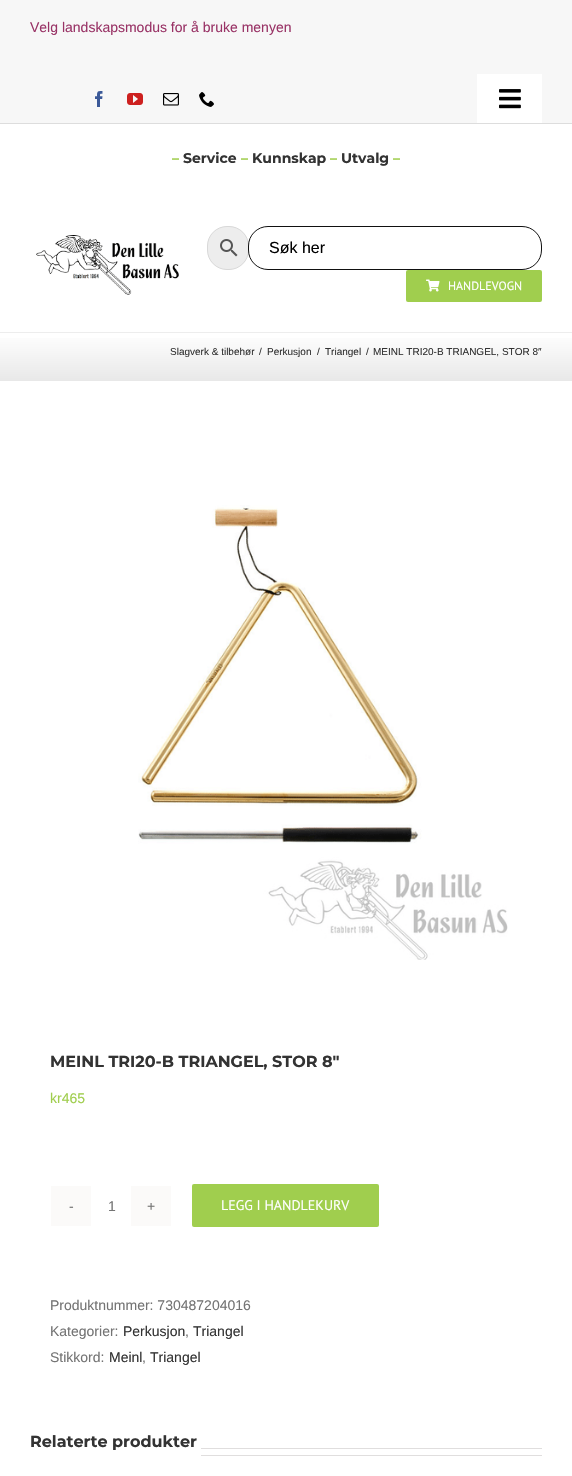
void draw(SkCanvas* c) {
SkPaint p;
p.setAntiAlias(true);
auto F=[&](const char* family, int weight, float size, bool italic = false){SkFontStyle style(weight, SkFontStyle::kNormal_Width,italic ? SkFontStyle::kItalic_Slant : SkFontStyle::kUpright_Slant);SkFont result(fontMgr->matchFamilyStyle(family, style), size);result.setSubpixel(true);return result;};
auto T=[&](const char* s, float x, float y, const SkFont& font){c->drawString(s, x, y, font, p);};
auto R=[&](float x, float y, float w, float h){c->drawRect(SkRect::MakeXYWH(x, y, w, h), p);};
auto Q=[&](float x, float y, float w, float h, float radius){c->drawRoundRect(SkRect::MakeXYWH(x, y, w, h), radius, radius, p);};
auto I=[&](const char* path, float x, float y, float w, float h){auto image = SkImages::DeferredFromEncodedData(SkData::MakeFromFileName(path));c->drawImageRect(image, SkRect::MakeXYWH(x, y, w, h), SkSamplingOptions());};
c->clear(0xffffffff);
p.setColor(0xfff7f7f7);
R(0,0,572,123);
p.setColor(0xffdddddd);
R(0,123,572,1);
auto f1 = F("Liberation Sans",400,14);
p.setColor(0xff993366);
T("Velg landskapsmodus for å bruke menyen",30,32,f1);
I("1.png",95,91,8,16);
I("2.png",127,93,16,12);
I("3.png",163,93,16,13);
I("4.png",199,92,15,15);
p.setColor(0xffffffff);
R(477,74,65,49);
I("5.png",499,89,22,20);
auto f2 = F("Montserrat",100,14);
p.setColor(0xffa0ce4e);
T("–",172,163,f2);
p.setColor(0xff333333);
T("Service",183,163,f2);
p.setColor(0xffa0ce4e);
T("–",241,163,f2);
p.setColor(0xff333333);
T("Kunnskap",252,163,f2);
p.setColor(0xffa0ce4e);
T("–",330,163,f2);
p.setColor(0xff333333);
T("Utvalg",341,163,f2);
p.setColor(0xffa0ce4e);
T("–",393,163,f2);
p.setColor(0xffededed);
R(0,332,572,1);
I("6.png",36,235,143,60);
c->drawRoundRect(SkRect::MakeXYWH(207.5,226.5,41,43),19.5,19.5,p);
p.setStroke(true);
p.setStrokeWidth(1);
p.setColor(0xffd8d8d8);
c->drawRoundRect(SkRect::MakeXYWH(207.5,226.5,41,43),19.5,19.5,p);
I("7.png",220,239,18,18);
p.setStroke(false);
p.setColor(0xffffffff);
c->drawRoundRect(SkRect::MakeXYWH(248.5,226.5,293,43),19.5,19.5,p);
p.setStroke(true);
p.setColor(0xff111111);
c->drawRoundRect(SkRect::MakeXYWH(248.5,226.5,293,43),19.5,19.5,p);
auto f3 = F("Liberation Sans",400,16);
p.setStroke(false);
p.setColor(0xff000000);
T("Søk her",269,253,f3);
p.setColor(0xffa0ce4e);
Q(406,270,136,32,2);
I("8.png",426,279,14,13);
auto f4 = F("PT Sans",400,12);
p.setColor(0xffffffff);
T("HANDLEVOGN",448,290,f4);
{
const SkColor colors[] = {0xffffffff,0xffe8e8e8};
const float stops[] = {0,1};
const SkPoint ends[] = {{286,333}, {286,381}};
p.setShader(SkGradientShader::MakeLinear(ends, colors, stops, 2, SkTileMode::kClamp));
p.setAlpha(255);
}
R(0,338,572,43);
auto f5 = F("Liberation Sans",400,10);
p.setShader(nullptr);
p.setColor(0xff333333);
T("Slagverk & tilbehør",170,355,f5);
T("/",259,355,f5);
T("Perkusjon",267,355,f5);
T("/",317,355,f5);
T("Triangel",325,355,f5);
T("/",366,355,f5);
T("MEINL TRI20-B TRIANGEL, STOR 8″",373,355,f5);
I("9.png",138,505,370,455);
auto f6 = F("Montserrat",100,16);
T("MEINL TRI20-B TRIANGEL, STOR 8″",50,1067,f6);
p.setColor(0xffa0ce4e);
T("kr465",50,1103,f1);
p.setColor(0xfffbfaf9);
R(51,1186,40,40);
p.setColor(0xff747474);
T("-",69,1211,f1);
T("1",108,1211,f1);
p.setColor(0xfffbfaf9);
R(131,1186,40,40);
p.setColor(0xff747474);
T("+",147,1211,f1);
p.setColor(0xffa0ce4e);
Q(192,1184,187,43,2);
auto f7 = F("PT Sans",400,14);
p.setColor(0xffffffff);
T("LEGG I HANDLEKURV",221,1210,f7);
p.setColor(0xff747474);
T("Produktnummer: 730487204016",50,1310,f1);
T("Kategorier:",50,1336,f1);
p.setColor(0xff333333);
T("Perkusjon",123,1336,f1);
p.setColor(0xff747474);
T(",",185,1336,f1);
p.setColor(0xff333333);
T("Triangel",193,1336,f1);
p.setColor(0xff747474);
T("Stikkord:",50,1362,f1);
p.setColor(0xff333333);
T("Meinl",109,1362,f1);
p.setColor(0xff747474);
T(",",142,1362,f1);
p.setColor(0xff333333);
T("Triangel",150,1362,f1);
T("Relaterte produkter",30,1447,f6);
p.setColor(0xffe0dede);
R(201,1448,341,1);
R(201,1455,341,1);
}
